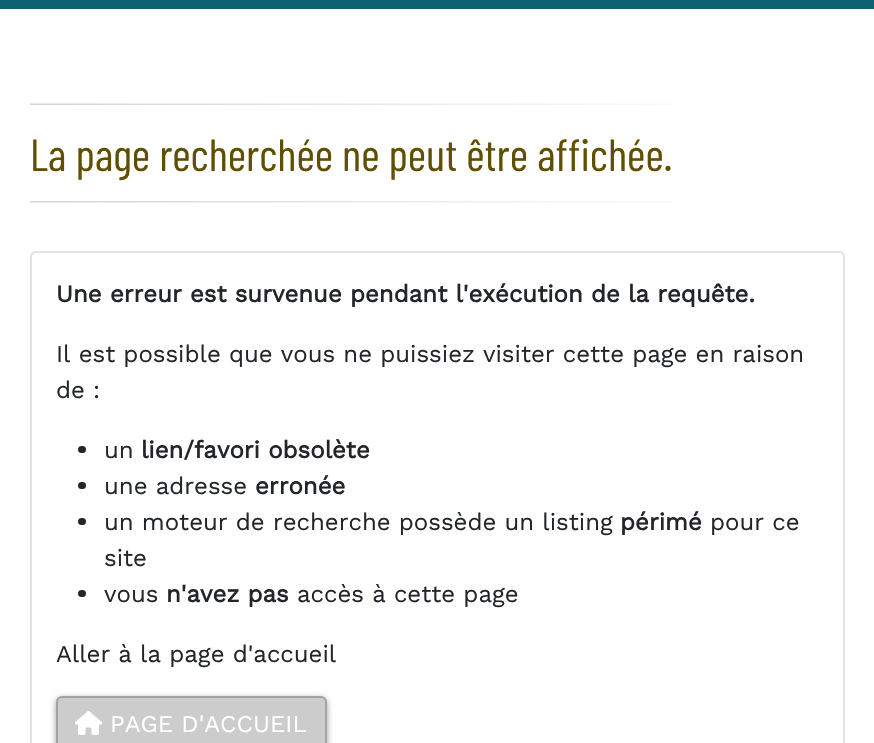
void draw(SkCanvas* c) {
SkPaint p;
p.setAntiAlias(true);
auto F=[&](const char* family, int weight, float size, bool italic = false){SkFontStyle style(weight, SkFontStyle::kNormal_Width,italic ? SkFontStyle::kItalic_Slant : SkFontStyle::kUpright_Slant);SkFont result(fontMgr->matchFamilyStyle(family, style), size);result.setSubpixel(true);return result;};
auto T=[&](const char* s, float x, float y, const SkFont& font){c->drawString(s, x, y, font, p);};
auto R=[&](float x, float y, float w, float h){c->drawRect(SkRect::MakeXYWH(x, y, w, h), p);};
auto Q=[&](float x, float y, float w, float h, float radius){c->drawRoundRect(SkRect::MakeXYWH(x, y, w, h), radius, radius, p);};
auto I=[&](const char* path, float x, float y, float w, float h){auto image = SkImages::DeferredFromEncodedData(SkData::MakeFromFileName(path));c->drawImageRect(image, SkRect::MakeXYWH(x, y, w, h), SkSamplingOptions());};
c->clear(0xffffffff);
p.setColor(0xff0e6171);
R(0,0,874,9);
I("1.png",30,103,642,100);
auto f1 = F("Barlow Condensed",400,45);
p.setColor(0xff604e01);
T("La page recherchée ne peut être affichée.",30,171,f1);
p.setStroke(true);
p.setStrokeWidth(2);
p.setColor(0xffdfe3e7);
c->drawRoundRect(SkRect::MakeXYWH(31,252,813,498),5,5,p);
auto f2 = F("Work Sans",700,24);
p.setStroke(false);
p.setColor(0xff22262a);
T("Une erreur est survenue pendant l'exécution de la requête.",56,302,f2);
auto f3 = F("Work Sans",400,24);
T("Il est possible que vous ne puissiez visiter cette page en raison",56,362,f3);
T("de :",56,398,f3);
Q(78,446,8,7,3.5);
T("un",104,458,f3);
T("lien/favori obsolète",141,458,f2);
Q(78,482,8,7,3.5);
T("une adresse",104,494,f3);
T("erronée",255,494,f2);
Q(78,518,8,7,3.5);
T("un moteur de recherche possède un listing",104,530,f3);
T("périmé",620,530,f2);
T("pour ce",710,530,f3);
T("site",104,566,f3);
Q(78,590,8,7,3.5);
T("vous",104,602,f3);
T("n'avez pas",166,602,f2);
T("accès à cette page",297,602,f3);
T("Aller à la page d'accueil",56,662,f3);
p.setColor(0x66000000);
p.setMaskFilter(SkMaskFilter::MakeBlur(kNormal_SkBlurStyle, 3));
c->drawRoundRect(SkRect::MakeXYWH(56,698,271,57),6,6,p);
p.setMaskFilter(nullptr);
p.setColor(0xffcccccc);
Q(56,696,271,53,6);
p.setStroke(true);
p.setColor(0x33000000);
c->drawRoundRect(SkRect::MakeXYWH(57,697,269,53),5,5,p);
I("2.png",75,711,27,24);
p.setStroke(false);
p.setColor(0xffffffff);
T("PAGE D'ACCUEIL",110,732,f3);
}
